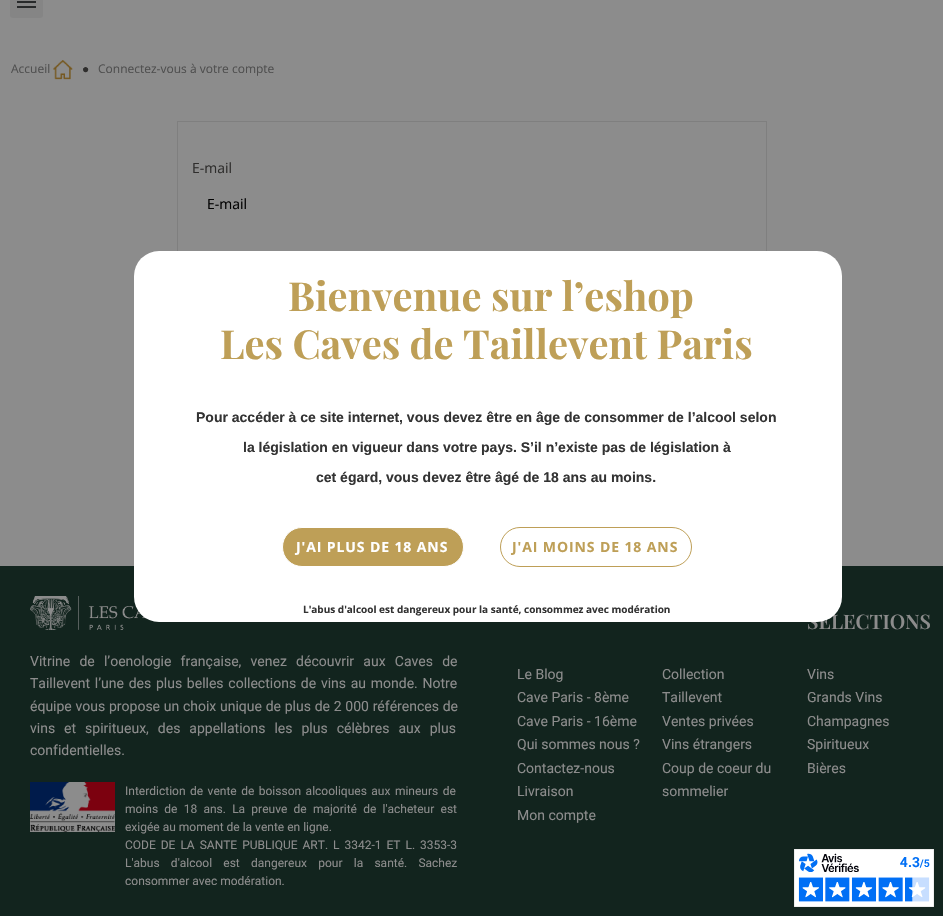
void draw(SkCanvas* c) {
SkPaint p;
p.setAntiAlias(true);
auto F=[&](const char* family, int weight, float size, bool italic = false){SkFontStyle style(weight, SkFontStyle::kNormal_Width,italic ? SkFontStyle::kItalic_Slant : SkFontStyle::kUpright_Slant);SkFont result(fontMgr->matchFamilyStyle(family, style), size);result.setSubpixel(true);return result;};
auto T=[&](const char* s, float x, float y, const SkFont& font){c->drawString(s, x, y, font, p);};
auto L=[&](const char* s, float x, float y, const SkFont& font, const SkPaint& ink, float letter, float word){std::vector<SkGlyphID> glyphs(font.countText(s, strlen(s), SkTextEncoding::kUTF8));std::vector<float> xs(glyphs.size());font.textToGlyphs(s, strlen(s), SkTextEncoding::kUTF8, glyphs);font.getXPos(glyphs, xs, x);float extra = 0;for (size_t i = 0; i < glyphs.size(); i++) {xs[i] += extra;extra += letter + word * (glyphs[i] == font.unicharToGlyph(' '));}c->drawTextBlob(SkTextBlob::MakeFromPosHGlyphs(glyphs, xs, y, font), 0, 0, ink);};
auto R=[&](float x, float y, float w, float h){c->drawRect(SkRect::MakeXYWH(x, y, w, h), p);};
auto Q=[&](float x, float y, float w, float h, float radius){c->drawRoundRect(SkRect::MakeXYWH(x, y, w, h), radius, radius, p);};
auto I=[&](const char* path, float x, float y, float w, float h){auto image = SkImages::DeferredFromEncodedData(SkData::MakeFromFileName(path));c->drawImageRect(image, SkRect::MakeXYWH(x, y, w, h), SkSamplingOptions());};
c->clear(0xff8c8c8c);
p.setColor(0xff858585);
Q(10,-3,33,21,3);
p.setColor(0xff282a2b);
R(17,1,19,2);
R(17,6,19,2);
auto f1 = F("Open Sans",400,12);
p.setColor(0xff4f4f4f);
T("Accueil",11,73,f1);
I("1.png",53,60,20,20);
auto f2 = F("Liberation Sans",400,12);
p.setColor(0xff2f2e2d);
T("●",82,73,f2);
p.setColor(0xff4f4f4f);
T("Connectez-vous à votre compte",98,73,f1);
p.setStroke(true);
p.setStrokeWidth(1);
p.setColor(0xff7f7f7f);
c->drawRect(SkRect::MakeXYWH(177.5,121.5,589,403),p);
auto f3 = F("Open Sans",400,14);
p.setStroke(false);
p.setColor(0xff2f2e2d);
T("E-mail",192,173,f3);
p.setColor(0xff000000);
T("E-mail",207,209,f3);
p.setColor(0xff12241e);
R(0,566,943,350);
I("2.png",30,596,116,34);
auto f4 = F("Roboto",400,14);
p.setColor(0xff8c8c8c);
L("Vitrine de l’oenologie française, venez découvrir aux Caves de",30,666,f4,p,0,5.75);
L("Taillevent l’une des plus belles collections de vins au monde. Notre",30,688,f4,p,0,1.25);
L("équipe vous propose un choix unique de plus de 2 000 références de",30,711,f4,p,0,.25);
L("vins et spiritueux, des appellations les plus célèbres aux plus",30,733,f4,p,0,5.5);
T("confidentielles.",30,755,f4);
R(30,810,85,22);
I("3.png",30,782,85,50);
auto f5 = F("Roboto",400,12);
L("Interdiction de vente de boisson alcooliques aux mineurs de",125,795,f5,p,0,1.5);
L("moins de 18 ans. La preuve de majorité de l'acheteur est",125,813,f5,p,0,3.25);
T("exigée au moment de la vente en ligne.",125,831,f5);
L("CODE DE LA SANTE PUBLIQUE ART. L 3342-1 ET L. 3353-3",125,849,f5,p,0,2);
L("L'abus d'alcool est dangereux pour la santé. Sachez",125,867,f5,p,0,8.25);
T("consommer avec modération.",125,885,f5);
T("Le Blog",517,679,f4);
T("Cave Paris - 8ème",517,702,f4);
T("Cave Paris - 16ème",517,726,f4);
T("Qui sommes nous ?",517,749,f4);
T("Contactez-nous",517,773,f4);
T("Livraison",517,796,f4);
T("Mon compte",517,820,f4);
T("Collection",662,679,f4);
T("Taillevent",662,702,f4);
T("Ventes privées",662,726,f4);
T("Vins étrangers",662,749,f4);
T("Coup de coeur du",662,773,f4);
T("sommelier",662,796,f4);
auto f6 = F("Playfair Display",600,20);
T("SÉLECTIONS",807,629,f6);
T("Vins",807,679,f4);
T("Grands Vins",807,702,f4);
T("Champagnes",807,726,f4);
T("Spiritueux",807,749,f4);
T("Bières",807,773,f4);
p.setColor(0xffffffff);
Q(134,251,708,371,25);
auto f7 = F("Playfair Display",700,40);
p.setColor(0xffbe9f57);
T("Bienvenue sur l’eshop",288,311,f7);
T("Les Caves de Taillevent Paris",220,359,f7);
auto f8 = F("Liberation Sans",700,14);
p.setColor(0xff333333);
T("Pour accéder à ce site internet, vous devez être en âge de consommer de l’alcool selon",196,422,f8);
T("la législation en vigueur dans votre pays. S’il n’existe pas de législation à",243,452,f8);
T("cet égard, vous devez être âgé de 18 ans au moins.",316,482,f8);
p.setColor(0xffbe9f57);
c->drawRoundRect(SkRect::MakeXYWH(282.5,527.5,181,39),19.5,19.5,p);
p.setStroke(true);
p.setColor(0xffffffff);
c->drawRoundRect(SkRect::MakeXYWH(282.5,527.5,181,39),19.5,19.5,p);
auto f9 = F("Open Sans",700,14);
p.setStroke(false);
L("J'AI PLUS DE 18 ANS",296,552,f9,p,.9,0);
p.setStroke(true);
p.setColor(0xffbe9f57);
c->drawRoundRect(SkRect::MakeXYWH(500.5,527.5,191,39),19.5,19.5,p);
p.setStroke(false);
L("J'AI MOINS DE 18 ANS",512,552,f9,p,.9,0);
auto f10 = F("Open Sans",700,10);
p.setColor(0xff333333);
T("L'abus d'alcool est dangereux pour la santé, consommez avec modération",303,613,f10);
I("4.png",794,849,140,58);
}
